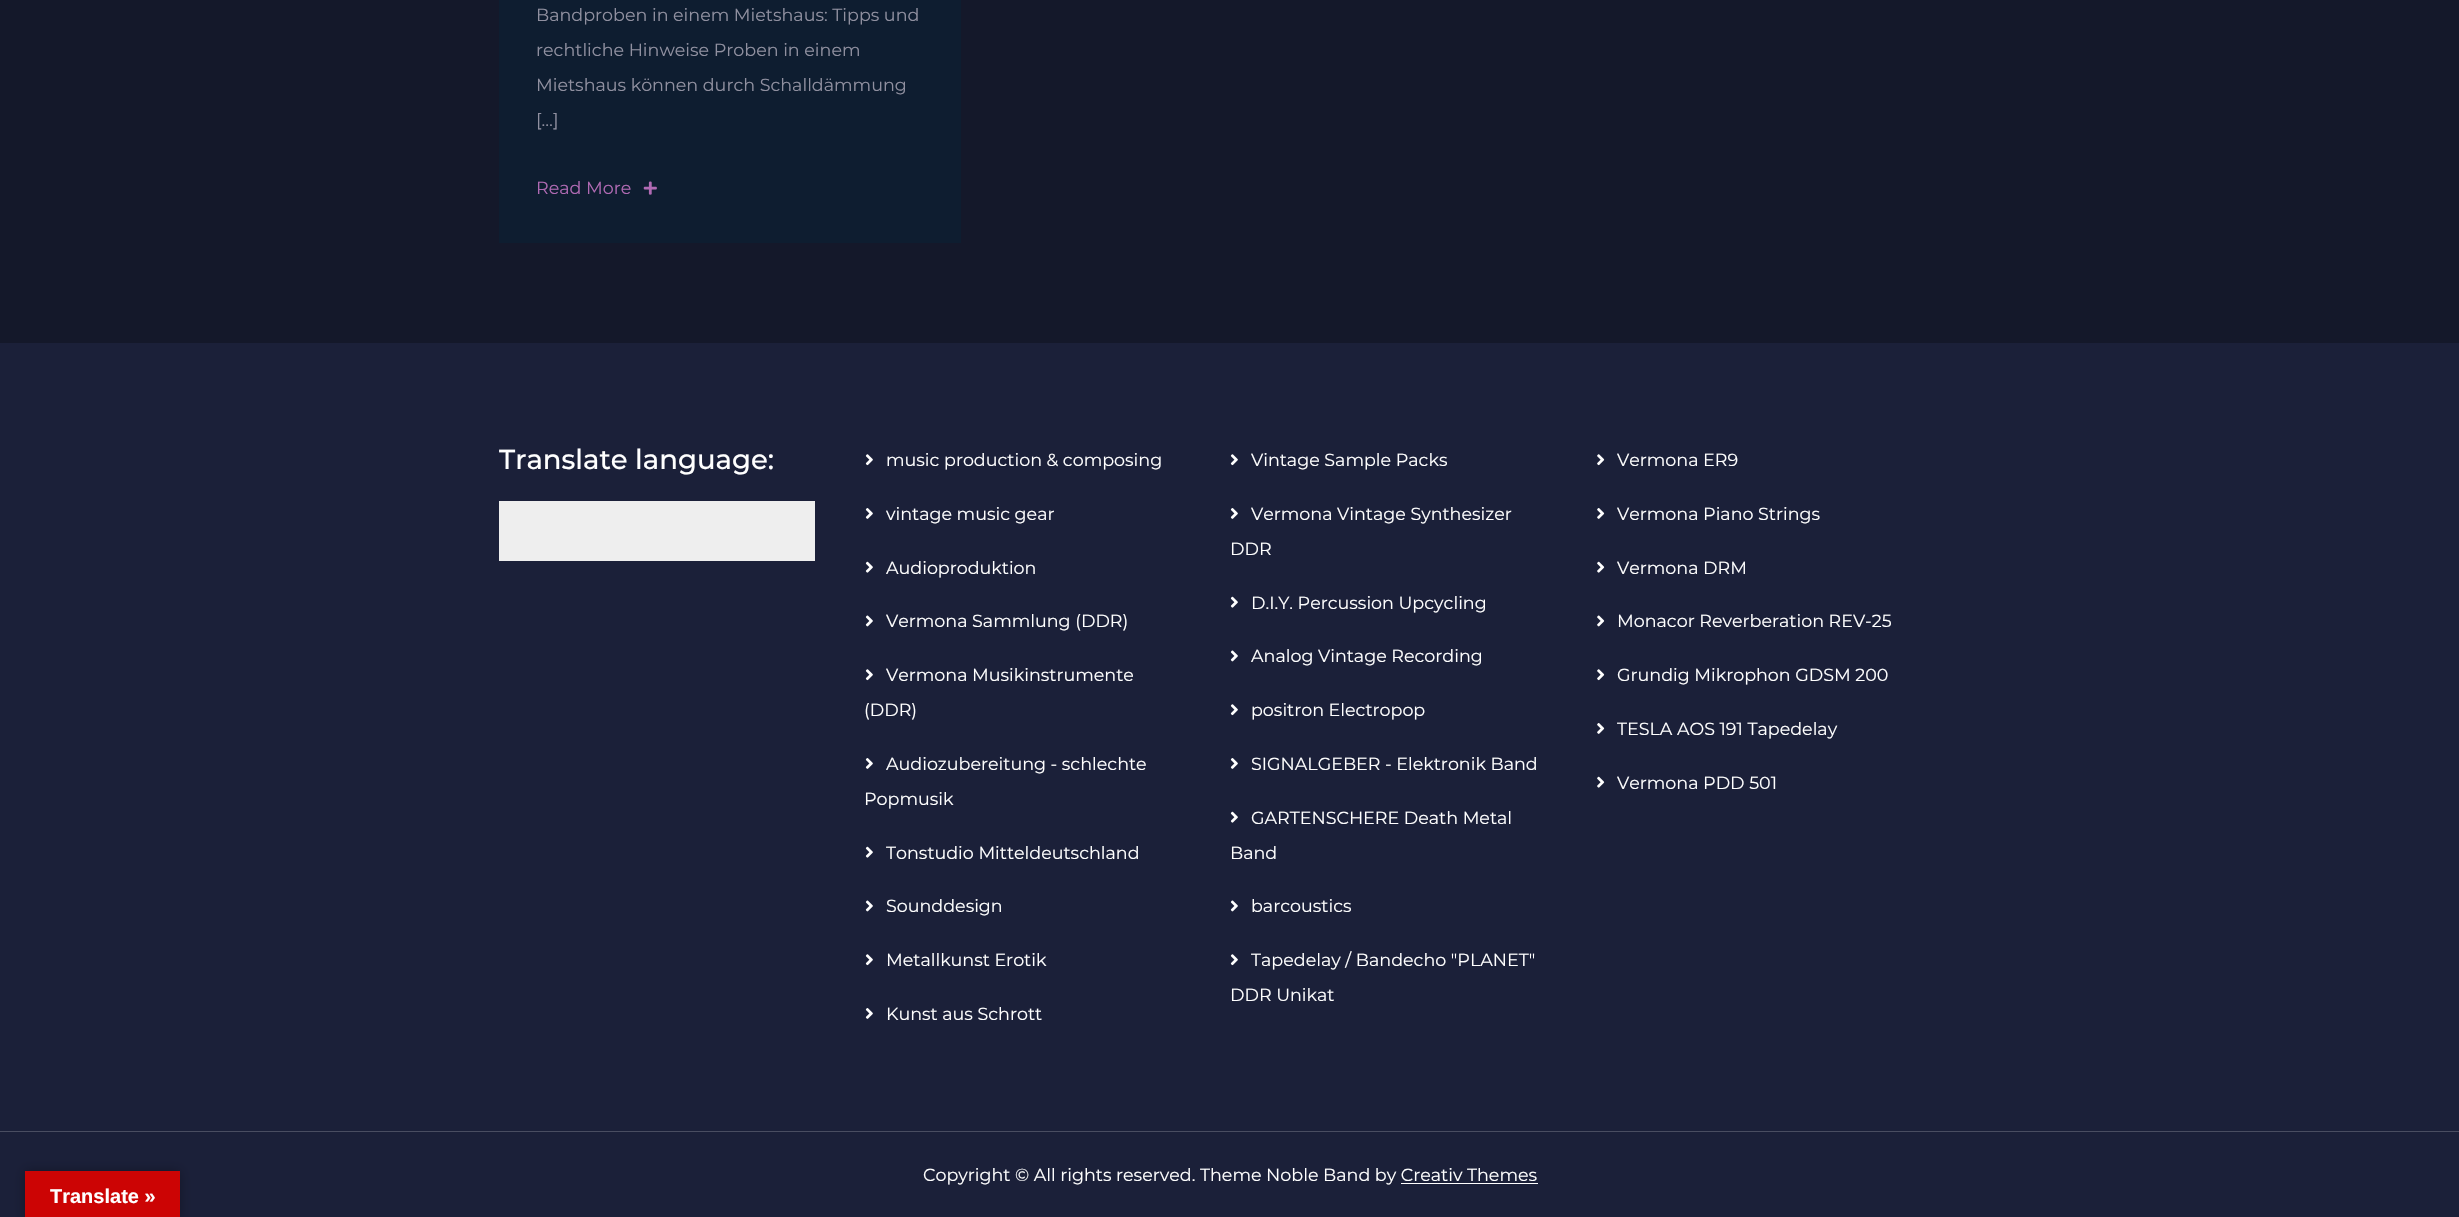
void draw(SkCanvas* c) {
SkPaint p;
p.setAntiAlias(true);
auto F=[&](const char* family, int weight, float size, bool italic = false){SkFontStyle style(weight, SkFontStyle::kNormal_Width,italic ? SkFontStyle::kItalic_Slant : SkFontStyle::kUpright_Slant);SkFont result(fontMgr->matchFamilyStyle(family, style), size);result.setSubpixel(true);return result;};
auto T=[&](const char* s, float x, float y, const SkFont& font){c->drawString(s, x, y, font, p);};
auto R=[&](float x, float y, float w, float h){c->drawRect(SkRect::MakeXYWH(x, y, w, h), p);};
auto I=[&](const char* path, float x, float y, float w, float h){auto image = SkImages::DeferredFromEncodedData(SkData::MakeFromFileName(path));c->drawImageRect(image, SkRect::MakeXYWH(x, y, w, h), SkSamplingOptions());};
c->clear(0xff14182a);
p.setColor(0xff0e1d30);
R(499,0,462,243);
auto f1 = F("Montserrat",400,17.5);
p.setColor(0xff9090a0);
T("Bandproben in einem Mietshaus: Tipps und",536,21,f1);
T("rechtliche Hinweise Proben in einem",536,56,f1);
T("Mietshaus können durch Schalldämmung",536,91,f1);
T("[…]",536,126,f1);
p.setColor(0xffb06ab3);
T("Read More",536,194,f1);
I("1.png",643,181,14,14);
p.setColor(0xff1b2039);
R(0,343,2459,874);
auto f2 = F("Montserrat",500,27.5);
p.setColor(0xffffffff);
T("Translate language:",499,469,f2);
p.setColor(0xffeeeeee);
R(499,501,316,60);
I("2.png",865,454,8,12);
p.setColor(0xffffffff);
T("music production & composing",886,466,f1);
I("3.png",865,508,8,11);
T("vintage music gear",886,520,f1);
I("4.png",865,561,8,12);
T("Audioproduktion",886,574,f1);
I("5.png",865,615,8,12);
T("Vermona Sammlung (DDR)",886,627,f1);
I("2.png",865,669,8,12);
T("Vermona Musikinstrumente",886,681,f1);
T("(DDR)",864,716,f1);
I("3.png",865,758,8,11);
T("Audiozubereitung - schlechte",886,770,f1);
T("Popmusik",864,805,f1);
I("4.png",865,846,8,12);
T("Tonstudio Mitteldeutschland",886,859,f1);
I("5.png",865,900,8,12);
T("Sounddesign",886,912,f1);
I("2.png",865,954,8,12);
T("Metallkunst Erotik",886,966,f1);
I("3.png",865,1008,8,11);
T("Kunst aus Schrott",886,1020,f1);
I("2.png",1230,454,8,12);
T("Vintage Sample Packs",1251,466,f1);
I("3.png",1230,508,8,11);
T("Vermona Vintage Synthesizer",1251,520,f1);
T("DDR",1230,555,f1);
I("4.png",1230,596,8,12);
T("D.I.Y. Percussion Upcycling",1251,609,f1);
I("5.png",1230,650,8,12);
T("Analog Vintage Recording",1251,662,f1);
I("2.png",1230,704,8,12);
T("positron Electropop",1251,716,f1);
I("3.png",1230,758,8,11);
T("SIGNALGEBER - Elektronik Band",1251,770,f1);
I("4.png",1230,811,8,12);
T("GARTENSCHERE Death Metal",1251,824,f1);
T("Band",1230,859,f1);
I("5.png",1230,900,8,12);
T("barcoustics",1251,912,f1);
I("2.png",1230,954,8,12);
T("Tapedelay / Bandecho \"PLANET\"",1251,966,f1);
T("DDR Unikat",1230,1001,f1);
I("6.png",1597,454,8,12);
T("Vermona ER9",1617,466,f1);
I("7.png",1597,508,8,11);
T("Vermona Piano Strings",1617,520,f1);
I("8.png",1597,561,8,12);
T("Vermona DRM",1617,574,f1);
I("9.png",1597,615,8,12);
T("Monacor Reverberation REV-25",1617,627,f1);
I("6.png",1597,669,8,12);
T("Grundig Mikrophon GDSM 200",1617,681,f1);
I("7.png",1597,723,8,11);
T("TESLA AOS 191 Tapedelay",1617,735,f1);
I("8.png",1597,776,8,12);
T("Vermona PDD 501",1617,789,f1);
p.setColor(0xff494d61);
R(0,1131,2459,1);
p.setColor(0xffffffff);
T("Copyright © All rights reserved. Theme Noble Band by Creativ Themes",923,1181,f1);
R(1401,1183,137,1);
p.setColor(0x4d000000);
p.setMaskFilter(SkMaskFilter::MakeBlur(kNormal_SkBlurStyle, 5.5));
c->drawRect(SkRect::MakeXYWH(25,1171,155,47),p);
p.setMaskFilter(nullptr);
p.setColor(0xffcc0404);
R(25,1171,155,46);
auto f3 = F("Liberation Sans",700,20);
p.setColor(0xffffffff);
T("Translate »",50,1203,f3);
}
